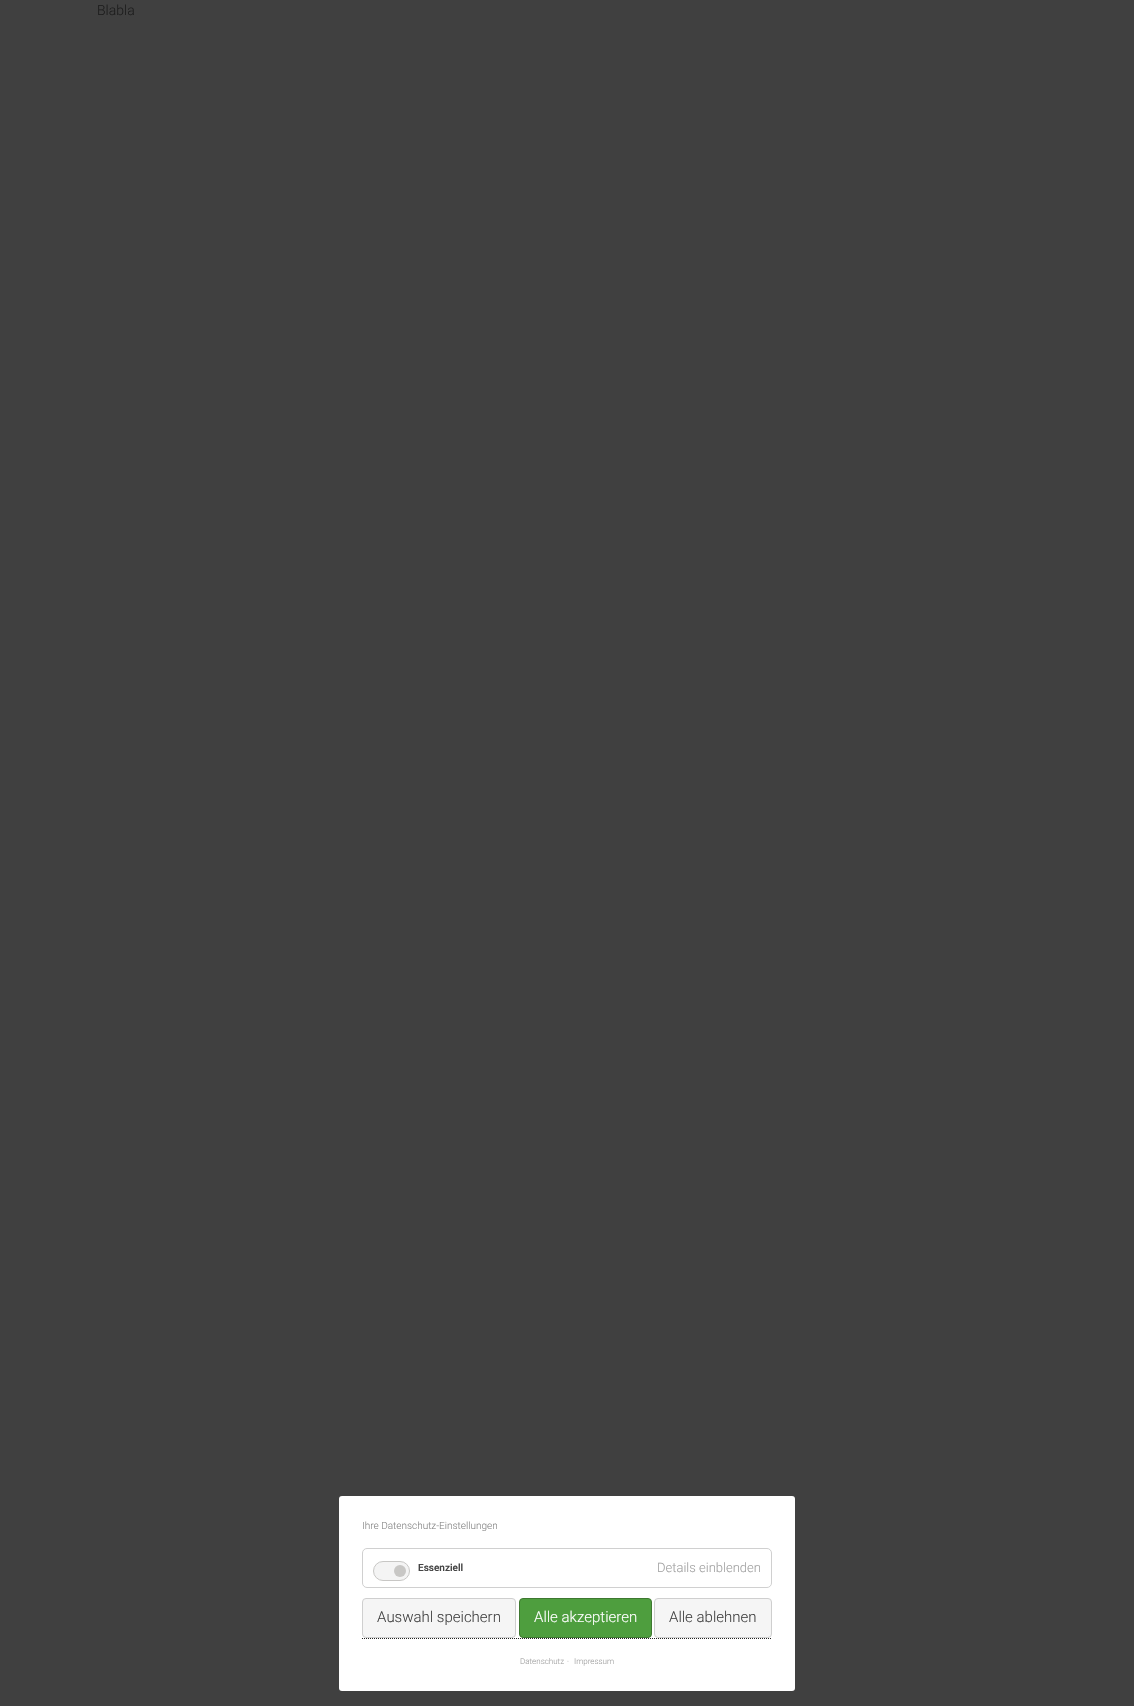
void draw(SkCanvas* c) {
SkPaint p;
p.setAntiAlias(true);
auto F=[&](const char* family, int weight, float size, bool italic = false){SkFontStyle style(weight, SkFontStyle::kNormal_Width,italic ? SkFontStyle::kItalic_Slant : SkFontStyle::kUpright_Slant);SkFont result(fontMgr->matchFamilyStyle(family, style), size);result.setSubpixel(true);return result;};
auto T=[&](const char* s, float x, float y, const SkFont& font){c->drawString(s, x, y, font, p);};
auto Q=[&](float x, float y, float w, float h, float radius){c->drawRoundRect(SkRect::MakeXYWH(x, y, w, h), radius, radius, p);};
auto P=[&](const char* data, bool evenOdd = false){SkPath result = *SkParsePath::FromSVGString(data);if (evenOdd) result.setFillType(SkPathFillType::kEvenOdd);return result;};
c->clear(0xff404040);
auto f1 = F("Roboto",300,14);
p.setColor(0xff1c1c1c);
T("Blabla",97,15,f1);
p.setColor(0xffffffff);
Q(339,1496,456,195,3);
auto f2 = F("Roboto",300,10);
p.setColor(0xff868686);
T("Ihre Datenschutz-Einstellungen",362,1529,f2);
p.setStroke(true);
p.setStrokeWidth(1);
p.setColor(0xffd0d0d0);
c->drawRoundRect(SkRect::MakeXYWH(362.5,1548.5,409,39),4.5,4.5,p);
p.setStroke(false);
p.setColor(0xfff4f4f4);
c->drawRoundRect(SkRect::MakeXYWH(373.5,1561.5,36,19),9.5,9.5,p);
p.setStroke(true);
p.setColor(0xffc8c7c5);
c->drawRoundRect(SkRect::MakeXYWH(373.5,1561.5,36,19),9.5,9.5,p);
auto f3 = F("Roboto",600,10);
p.setStroke(false);
p.setColor(0xff444444);
T("Essenziell",418,1571,f3);
p.setColor(0xffc8c7c5);
c->drawCircle(400,1571,6,p);
auto f4 = F("Roboto",300,13);
p.setColor(0xffa2a2a2);
T("Details einblenden",657,1572,f4);
p.setStroke(true);
p.setColor(0xff222222);
p.setPathEffect(SkDashPathEffect::Make({{1,1}}, 0));
c->drawPath(P("M362 1638.5h410"),p);
p.setPathEffect(nullptr);
p.setStroke(false);
p.setColor(0xfff5f5f5);
c->drawRoundRect(SkRect::MakeXYWH(362.5,1598.5,153,39),3.5,3.5,p);
p.setStroke(true);
p.setColor(0xffcfcfcf);
c->drawRoundRect(SkRect::MakeXYWH(362.5,1598.5,153,39),3.5,3.5,p);
auto f5 = F("Roboto",300,15);
p.setStroke(false);
p.setColor(0xff444444);
T("Auswahl speichern",377,1622,f5);
p.setColor(0xff4e9e3e);
c->drawRoundRect(SkRect::MakeXYWH(519.5,1598.5,132,39),3.5,3.5,p);
p.setStroke(true);
p.setColor(0xff3e7830);
c->drawRoundRect(SkRect::MakeXYWH(519.5,1598.5,132,39),3.5,3.5,p);
p.setStroke(false);
p.setColor(0xffffffff);
T("Alle akzeptieren",534,1622,f5);
p.setColor(0xfff5f5f5);
c->drawRoundRect(SkRect::MakeXYWH(654.5,1598.5,117,39),3.5,3.5,p);
p.setStroke(true);
p.setColor(0xffcfcfcf);
c->drawRoundRect(SkRect::MakeXYWH(654.5,1598.5,117,39),3.5,3.5,p);
p.setStroke(false);
p.setColor(0xff444444);
T("Alle ablehnen",669,1622,f5);
auto f6 = F("Roboto",300,8);
p.setColor(0xffa2a2a2);
T("Datenschutz",520,1664,f6);
T("·",567,1664,f6);
T("Impressum",574,1664,f6);
}
